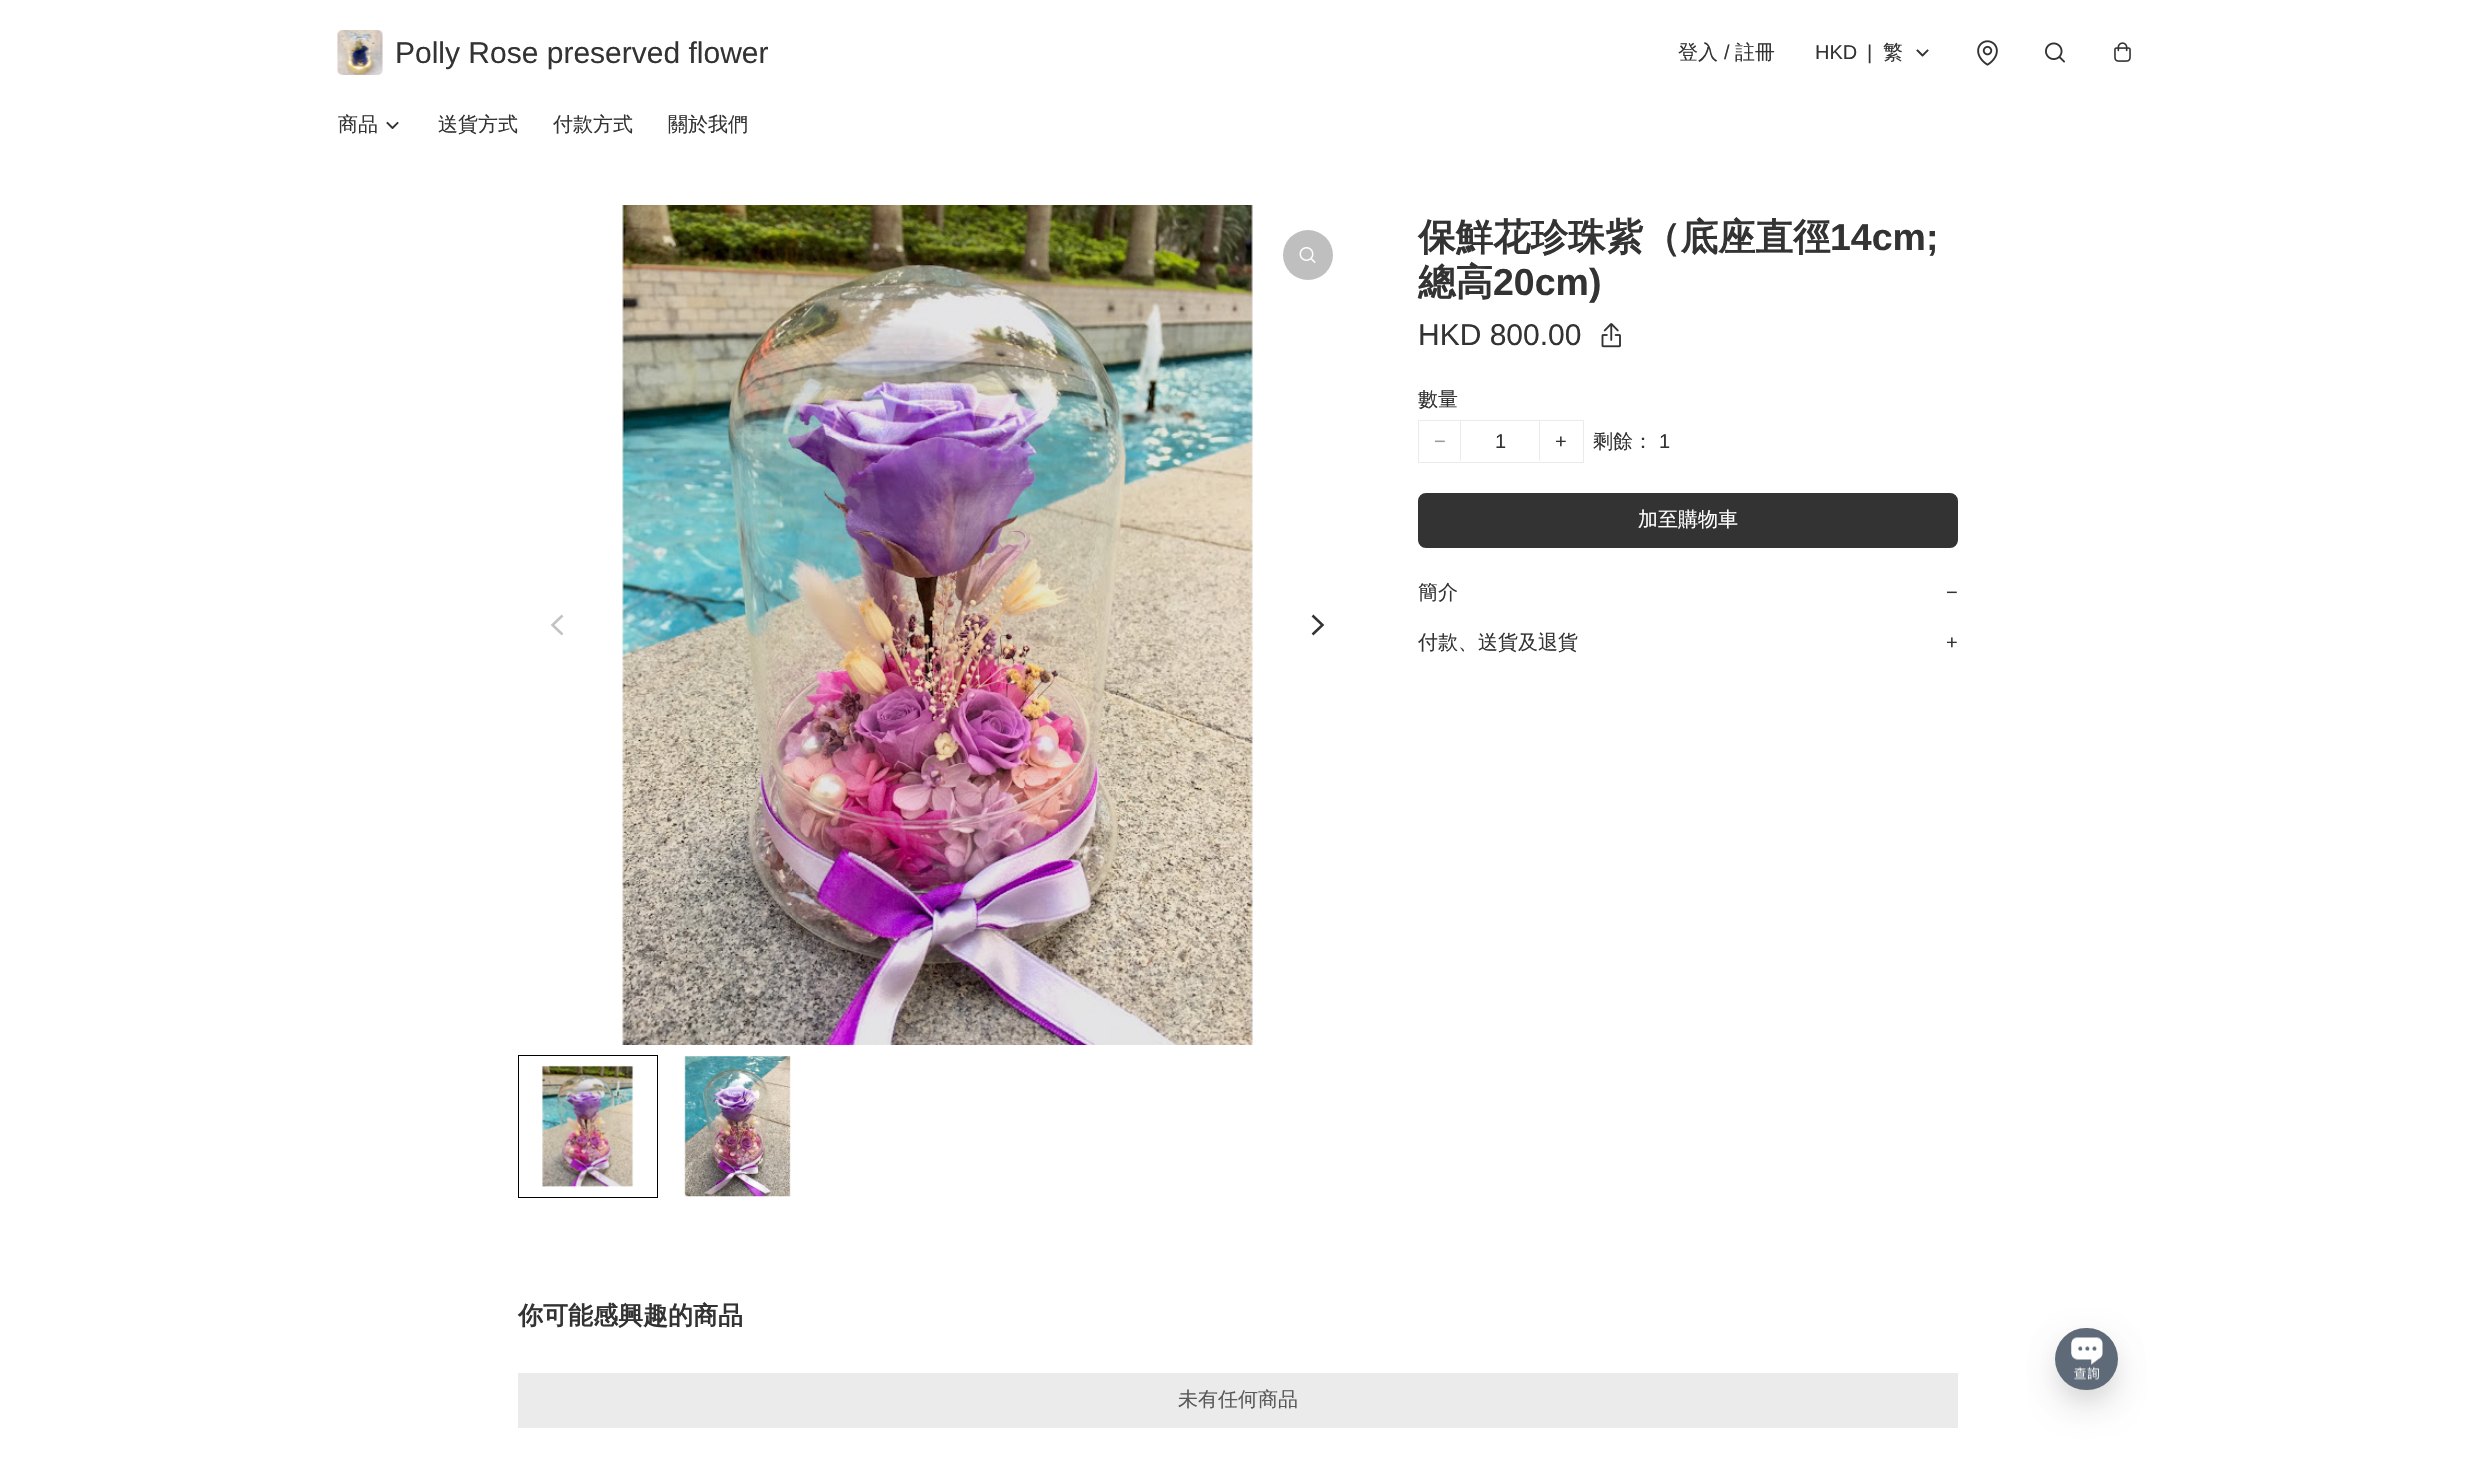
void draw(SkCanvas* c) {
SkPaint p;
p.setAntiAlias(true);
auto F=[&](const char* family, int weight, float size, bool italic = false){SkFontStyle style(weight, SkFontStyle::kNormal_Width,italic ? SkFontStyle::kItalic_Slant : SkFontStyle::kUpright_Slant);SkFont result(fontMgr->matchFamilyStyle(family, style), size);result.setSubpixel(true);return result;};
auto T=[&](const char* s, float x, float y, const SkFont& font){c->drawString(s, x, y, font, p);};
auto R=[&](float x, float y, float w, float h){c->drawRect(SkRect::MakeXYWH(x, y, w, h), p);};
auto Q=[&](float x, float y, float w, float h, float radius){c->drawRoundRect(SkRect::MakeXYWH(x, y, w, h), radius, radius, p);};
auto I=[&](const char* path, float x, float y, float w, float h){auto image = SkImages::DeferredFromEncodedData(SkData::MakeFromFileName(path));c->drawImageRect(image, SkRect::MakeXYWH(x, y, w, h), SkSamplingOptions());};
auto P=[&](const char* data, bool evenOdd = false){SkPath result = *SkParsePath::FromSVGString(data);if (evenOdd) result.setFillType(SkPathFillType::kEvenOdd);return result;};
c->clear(0xffffffff);
I("1.png",337,30,46,45);
auto f1 = F("Liberation Sans",400,30);
p.setColor(0xff333333);
T("Polly Rose preserved flower",395,63,f1);
auto f2 = F("WenQuanYi Zen Hei",500,20);
T("登入",1678,59,f2);
auto f3 = F("Liberation Sans",400,20);
T("/",1724,59,f3);
T("註冊",1735,59,f2);
T("HKD",1815,59,f3);
T("|",1867,59,f3);
T("繁",1883,59,f2);
p.setStroke(true);
p.setStrokeWidth(1.9);
p.setStrokeCap(SkPaint::kSquare_Cap);
p.setStrokeJoin(SkPaint::kRound_Join);
c->drawPath(P("M1917.5 50.5l5 5l5-5"),p);
I("2.png",1977,40,21,26);
I("3.png",2045,42,20,21);
I("4.png",2114,42,17,20);
p.setStroke(false);
T("商品",338,131,f2);
p.setStroke(true);
c->drawPath(P("M387.5 123l5 5l5-5"),p);
p.setStroke(false);
T("送貨方式",438,131,f2);
T("付款方式",553,131,f2);
T("關於我們",668,131,f2);
I("5.png",622,205,631,840);
p.setColor(0xffbfbfbf);
c->drawCircle(1308,255,25,p);
I("6.png",1299,247,17,16);
p.setStroke(true);
p.setStrokeWidth(2.5);
p.setStrokeCap(SkPaint::kButt_Cap);
p.setStrokeJoin(SkPaint::kMiter_Join);
p.setColor(0xffc2c2c2);
c->drawPath(P("M562.5 615.5l-10 9.5l10 9.5"),p);
p.setColor(0xff333333);
c->drawPath(P("M1312.5 615.5l10 9.5l-10 9.5"),p);
p.setStrokeWidth(1);
p.setColor(0xff000000);
c->drawRect(SkRect::MakeXYWH(518.5,1055.5,139,142),p);
I("7.png",542,1065,92,122);
I("8.png",683,1056,108,141);
auto f4 = F("WenQuanYi Zen Hei",700,37.5);
p.setStroke(false);
p.setColor(0xff333333);
T("保鮮花珍珠紫（底座直徑",1418,250,f4);
auto f5 = F("Liberation Sans",700,37.5);
T("14cm;",1830,250,f5);
T("總高",1418,295,f4);
T("20cm)",1493,295,f5);
T("HKD 800.00",1418,345,f1);
I("9.png",1601,323,20,25);
T("數量",1418,406,f2);
p.setStroke(true);
p.setColor(0xffebebeb);
c->drawRect(SkRect::MakeXYWH(1418.5,420.5,165,42),p);
p.setStroke(false);
p.setColor(0xff999999);
T("−",1434,448,f3);
p.setColor(0xffebebeb);
R(1539,421,1,40);
R(1460,421,1,40);
p.setColor(0xff333333);
T("1",1495,448,f3);
T("+",1555,448,f3);
T("剩餘：",1593,448,f2);
T("1",1659,448,f3);
c->drawRoundRect(SkRect::MakeXYWH(1419.5,494.5,537,52),6.5,6.5,p);
p.setStroke(true);
p.setStrokeWidth(3);
c->drawRoundRect(SkRect::MakeXYWH(1419.5,494.5,537,52),6.5,6.5,p);
p.setStroke(false);
p.setColor(0xffffffff);
T("加至購物車",1638,526,f2);
p.setColor(0xff333333);
T("簡介",1418,599,f2);
T("−",1946,599,f3);
T("付款、送貨及退貨",1418,649,f2);
T("+",1946,649,f3);
auto f6 = F("WenQuanYi Zen Hei",700,25);
T("你可能感興趣的商品",518,1324,f6);
p.setColor(0xffebebeb);
R(518,1373,1440,55);
p.setColor(0xff585858);
T("未有任何商品",1178,1406,f2);
p.setColor(0x4d000000);
p.setMaskFilter(SkMaskFilter::MakeBlur(kNormal_SkBlurStyle, 19));
c->drawRoundRect(SkRect::MakeXYWH(2068,1359,37,37),18.5,18.5,p);
p.setMaskFilter(nullptr);
p.setColor(0x0d000000);
p.setMaskFilter(SkMaskFilter::MakeBlur(kNormal_SkBlurStyle, 12.5));
c->drawRoundRect(SkRect::MakeXYWH(2055,1334,63,62),31,31,p);
p.setMaskFilter(nullptr);
p.setColor(0xff5f6a78);
Q(2055,1328,63,62,31);
I("10.png",2071,1337,32,43);
}
